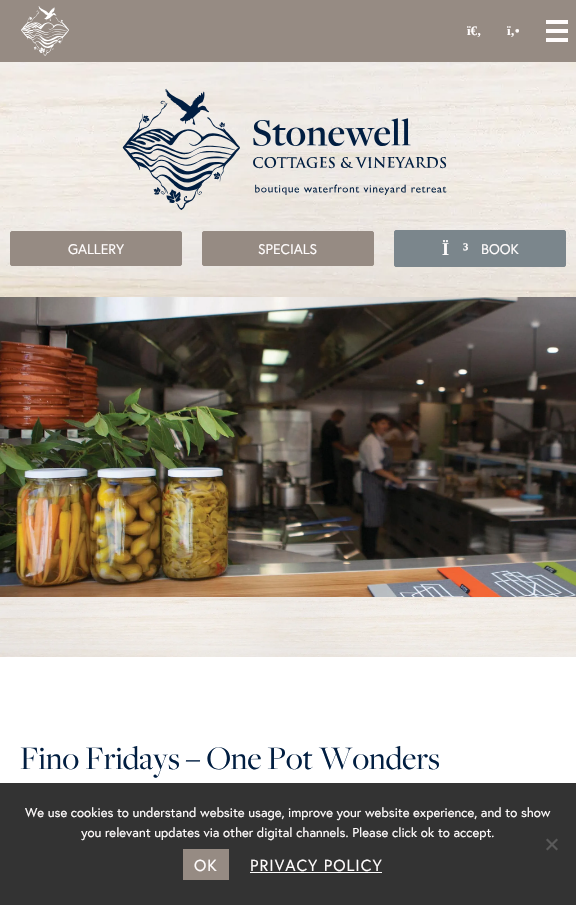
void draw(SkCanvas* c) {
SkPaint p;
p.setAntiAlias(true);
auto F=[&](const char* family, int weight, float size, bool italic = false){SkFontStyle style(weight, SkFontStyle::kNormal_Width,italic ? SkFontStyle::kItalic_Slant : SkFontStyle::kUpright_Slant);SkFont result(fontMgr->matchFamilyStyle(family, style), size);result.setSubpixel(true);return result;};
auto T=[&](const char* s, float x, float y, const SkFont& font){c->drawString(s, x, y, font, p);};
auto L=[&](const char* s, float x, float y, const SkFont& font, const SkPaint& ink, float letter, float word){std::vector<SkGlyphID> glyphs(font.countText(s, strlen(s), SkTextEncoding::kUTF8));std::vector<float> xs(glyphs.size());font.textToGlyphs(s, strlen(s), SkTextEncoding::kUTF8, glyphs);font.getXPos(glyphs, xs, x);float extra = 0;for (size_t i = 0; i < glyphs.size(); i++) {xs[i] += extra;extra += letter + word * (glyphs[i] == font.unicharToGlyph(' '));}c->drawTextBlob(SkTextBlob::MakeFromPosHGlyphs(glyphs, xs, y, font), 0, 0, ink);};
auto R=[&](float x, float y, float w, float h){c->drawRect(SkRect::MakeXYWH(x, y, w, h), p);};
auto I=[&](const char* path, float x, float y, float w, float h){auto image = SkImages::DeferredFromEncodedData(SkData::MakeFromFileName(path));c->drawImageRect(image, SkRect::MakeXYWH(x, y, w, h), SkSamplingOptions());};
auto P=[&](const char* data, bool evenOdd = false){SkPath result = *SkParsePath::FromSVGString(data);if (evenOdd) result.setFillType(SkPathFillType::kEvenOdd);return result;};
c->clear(0xffffffff);
p.setColor(0xff968b83);
R(0,0,576,62);
I("1.png",21,6,48,50);
auto f1 = F("Liberation Serif",700,13);
p.setColor(0xfffffcfc);
T("ï€‚",467,35,f1);
T("ï‚•",507,35,f1);
R(546,20,22,4);
R(546,29,22,4);
R(546,38,22,4);
I("2.png",0,62,576,235);
I("3.png",122,88,325,122);
p.setColor(0xff968b83);
c->drawRoundRect(SkRect::MakeXYWH(10.5,231.5,171,34),1.5,1.5,p);
p.setStroke(true);
p.setStrokeWidth(1);
c->drawRoundRect(SkRect::MakeXYWH(10.5,231.5,171,34),1.5,1.5,p);
auto f2 = F("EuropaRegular",400,14);
p.setStroke(false);
p.setColor(0xfffffcfc);
T("GALLERY",68,254,f2);
p.setColor(0xff968b83);
c->drawRoundRect(SkRect::MakeXYWH(202.5,231.5,171,34),1.5,1.5,p);
p.setStroke(true);
c->drawRoundRect(SkRect::MakeXYWH(202.5,231.5,171,34),1.5,1.5,p);
p.setStroke(false);
p.setColor(0xfffffcfc);
T("SPECIALS",258,254,f2);
p.setColor(0xff7b868c);
c->drawRoundRect(SkRect::MakeXYWH(394.5,230.5,171,36),1.5,1.5,p);
p.setStroke(true);
c->drawRoundRect(SkRect::MakeXYWH(394.5,230.5,171,36),1.5,1.5,p);
auto f3 = F("Liberation Serif",700,18);
p.setStroke(false);
p.setColor(0xfffffcfc);
T("Ï",442,255,f3);
T("³",463,255,f3);
T("BOOK",481,254,f2);
I("4.png",0,297,576,300);
I("5.png",0,597,576,60);
auto f4 = F("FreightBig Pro",400,34);
p.setColor(0xff011e41);
T("Fino Fridays – One Pot Wonders",20,769,f4);
p.setColor(0xff333333);
R(0,783,576,122);
auto f5 = F("EuropaRegular",400,13);
p.setColor(0xfffffcfc);
T("We use cookies to understand website usage, improve your website experience, and to show",25,817,f5);
T("you relevant updates via other digital channels. Please click ok to accept.",81,837,f5);
p.setColor(0xff5a5a5a);
c->drawPath(P("M556.5 838.5l1.5 1.5l-10.5 10.5l-1.5-1.5z"),p);
c->drawPath(P("M546 840l1.5-1.5l10.5 10.5l-1.5 1.5z"),p);
p.setColor(0xff968b83);
R(183,849,46,31);
auto f6 = F("EuropaRegular",400,16);
p.setColor(0xfffffcfc);
L("OK",194,871,f6,p,1,0);
L("PRIVACY POLICY",250,871,f6,p,1,0);
p.setColor(0xffffffff);
R(250,872,132,1);
}
